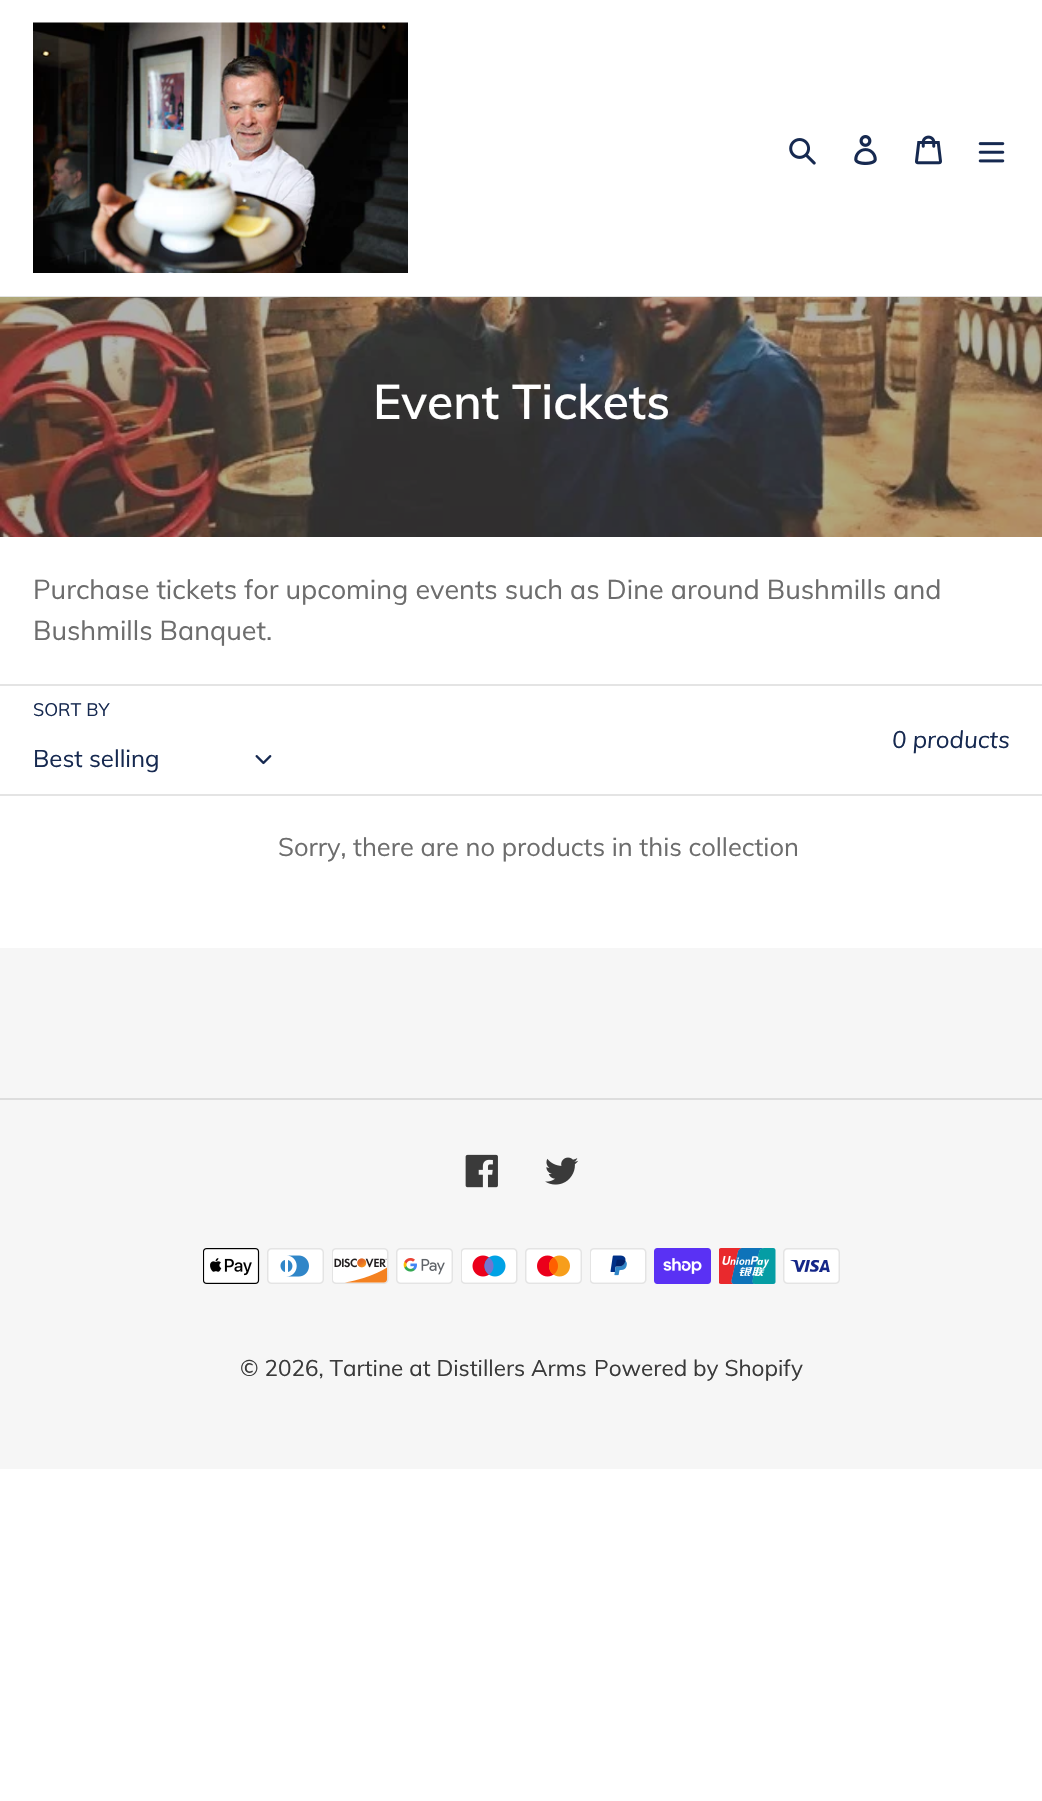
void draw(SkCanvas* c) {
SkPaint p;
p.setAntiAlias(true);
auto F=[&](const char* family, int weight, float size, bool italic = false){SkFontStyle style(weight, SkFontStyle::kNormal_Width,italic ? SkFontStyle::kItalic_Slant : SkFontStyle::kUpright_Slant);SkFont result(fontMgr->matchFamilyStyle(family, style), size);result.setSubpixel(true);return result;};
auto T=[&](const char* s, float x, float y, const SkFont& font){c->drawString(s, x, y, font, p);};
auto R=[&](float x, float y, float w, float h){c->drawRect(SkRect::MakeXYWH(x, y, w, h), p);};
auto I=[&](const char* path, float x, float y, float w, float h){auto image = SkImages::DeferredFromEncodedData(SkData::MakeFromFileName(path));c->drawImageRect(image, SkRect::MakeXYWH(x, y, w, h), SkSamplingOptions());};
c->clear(0xffffffff);
p.setColor(0xffe4e4e4);
R(0,296,1042,1);
I("1.png",33,22,375,251);
I("2.png",789,138,27,27);
I("3.png",854,135,23,30);
I("4.png",915,135,27,30);
I("5.png",978,142,27,21);
I("6.png",0,297,1042,240);
auto f1 = F("Muli",600,48);
p.setColor(0xffffffff);
T("Event Tickets",373,419,f1);
auto f2 = F("Muli",400,27);
p.setColor(0xff6d6d6d);
T("Purchase tickets for upcoming events such as Dine around Bushmills and",33,599,f2);
T("Bushmills Banquet.",33,640,f2);
p.setColor(0xffe4e4e4);
R(0,684,1042,2);
R(0,794,1042,2);
auto f3 = F("Muli",400,18);
p.setColor(0xff162950);
T("SORT BY",33,716,f3);
auto f4 = F("Muli",400,24);
T("Best selling",33,767,f4);
I("7.png",255,755,17,10);
auto f5 = F("Muli",400,24,true);
T("0 products",892,748,f5);
auto f6 = F("Muli",400,25.5);
p.setColor(0xff6d6d6d);
T("Sorry, there are no products in this collection",278,856,f6);
p.setColor(0xfff6f6f6);
R(0,948,1042,521);
p.setColor(0xffdddddd);
R(0,1098,1042,2);
I("8.png",465,1154,33,34);
I("9.png",545,1157,34,28);
I("10.png",203,1248,57,36);
I("11.png",267,1248,57,36);
I("12.png",332,1248,57,36);
I("13.png",396,1248,57,36);
I("14.png",461,1248,57,36);
I("15.png",525,1248,57,36);
I("16.png",590,1248,57,36);
I("17.png",654,1248,57,36);
I("18.png",719,1248,57,36);
I("19.png",783,1248,57,36);
auto f7 = F("Muli",400,22.5);
p.setColor(0xff3a3a3a);
T("© 2026, Tartine at Distillers Arms",240,1376,f7);
T("Powered by Shopify",594,1376,f7);
}
